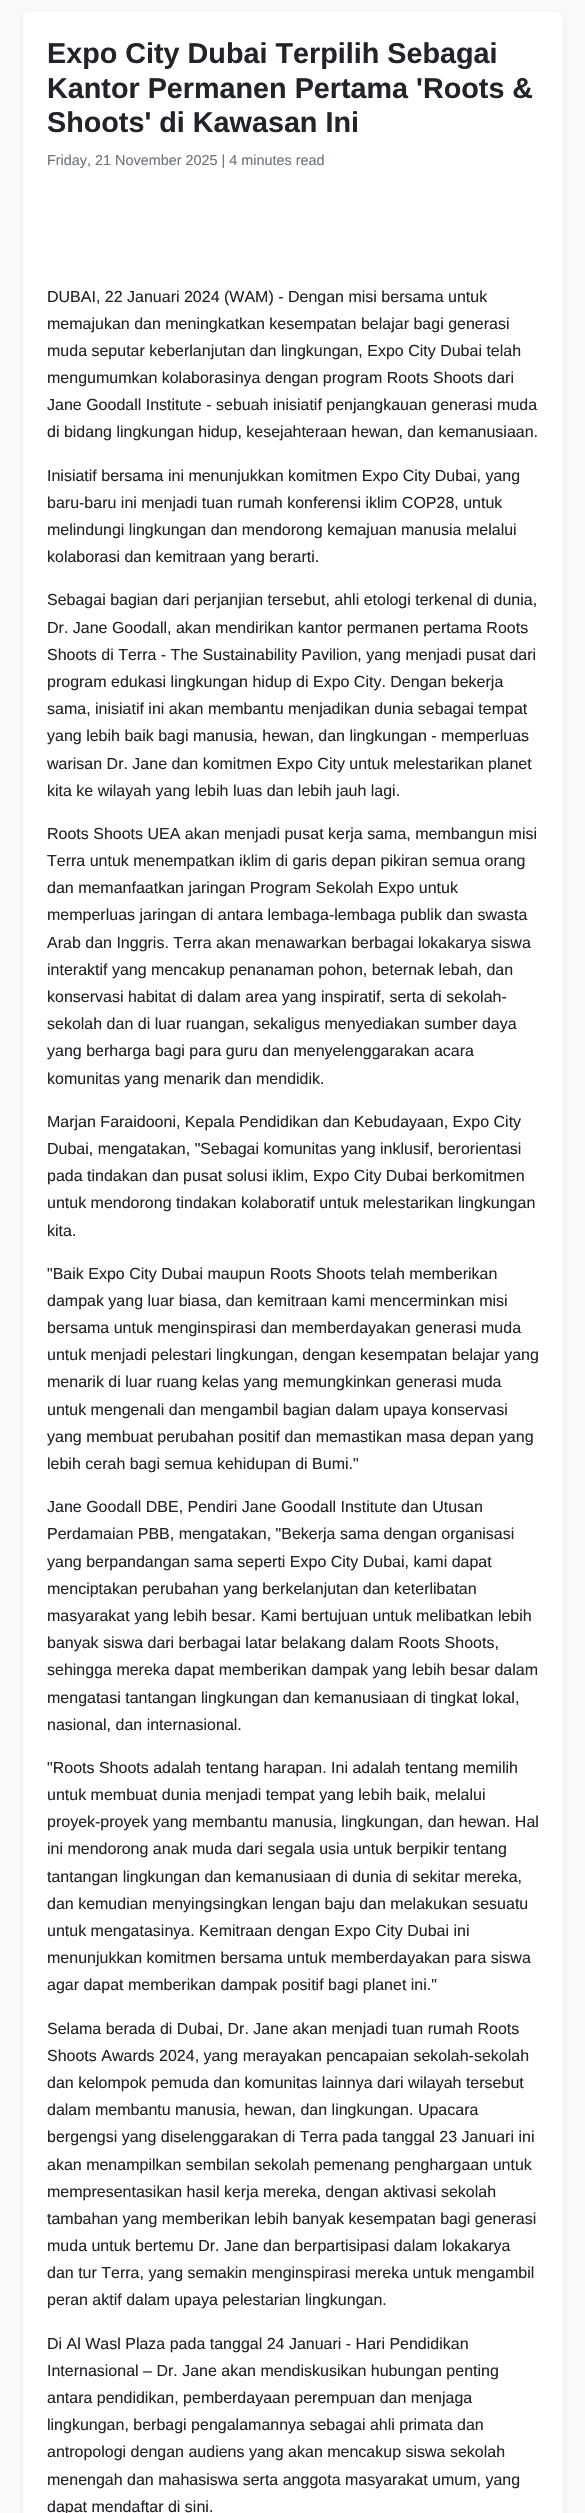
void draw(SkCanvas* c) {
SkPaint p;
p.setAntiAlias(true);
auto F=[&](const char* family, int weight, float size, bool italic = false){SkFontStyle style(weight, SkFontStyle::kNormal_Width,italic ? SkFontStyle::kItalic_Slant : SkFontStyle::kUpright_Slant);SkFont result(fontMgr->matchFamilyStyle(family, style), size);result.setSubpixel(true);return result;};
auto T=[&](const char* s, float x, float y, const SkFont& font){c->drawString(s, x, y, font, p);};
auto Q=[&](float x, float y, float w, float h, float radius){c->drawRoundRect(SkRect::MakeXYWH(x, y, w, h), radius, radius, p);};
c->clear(0xfff8f9fa);
p.setColor(0x12000000);
p.setMaskFilter(SkMaskFilter::MakeBlur(kNormal_SkBlurStyle, 2));
c->drawRoundRect(SkRect::MakeXYWH(23,14,540,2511),6,6,p);
p.setMaskFilter(nullptr);
p.setColor(0xffffffff);
Q(23,12,540,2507,6);
auto f1 = F("Liberation Sans",700,28.75);
p.setColor(0xff212529);
T("Expo City Dubai Terpilih Sebagai",47,63,f1);
T("Kantor Permanen Pertama 'Roots &",47,98,f1);
T("Shoots' di Kawasan Ini",47,132,f1);
auto f2 = F("Liberation Sans",400,14.4);
p.setColor(0xff6c757d);
T("Friday, 21 November 2025 | 4 minutes read",47,165,f2);
auto f3 = F("Liberation Sans",400,16);
p.setColor(0xff212529);
T("DUBAI, 22 Januari 2024 (WAM) - Dengan misi bersama untuk",47,302,f3);
T("memajukan dan meningkatkan kesempatan belajar bagi generasi",47,329,f3);
T("muda seputar keberlanjutan dan lingkungan, Expo City Dubai telah",47,356,f3);
T("mengumumkan kolaborasinya dengan program Roots Shoots dari",47,383,f3);
T("Jane Goodall Institute - sebuah inisiatif penjangkauan generasi muda",47,410,f3);
T("di bidang lingkungan hidup, kesejahteraan hewan, dan kemanusiaan.",47,437,f3);
T("Inisiatif bersama ini menunjukkan komitmen Expo City Dubai, yang",47,481,f3);
T("baru-baru ini menjadi tuan rumah konferensi iklim COP28, untuk",47,508,f3);
T("melindungi lingkungan dan mendorong kemajuan manusia melalui",47,535,f3);
T("kolaborasi dan kemitraan yang berarti.",47,562,f3);
T("Sebagai bagian dari perjanjian tersebut, ahli etologi terkenal di dunia,",47,605,f3);
T("Dr. Jane Goodall, akan mendirikan kantor permanen pertama Roots",47,633,f3);
T("Shoots di Terra - The Sustainability Pavilion, yang menjadi pusat dari",47,660,f3);
T("program edukasi lingkungan hidup di Expo City. Dengan bekerja",47,687,f3);
T("sama, inisiatif ini akan membantu menjadikan dunia sebagai tempat",47,714,f3);
T("yang lebih baik bagi manusia, hewan, dan lingkungan - memperluas",47,741,f3);
T("warisan Dr. Jane dan komitmen Expo City untuk melestarikan planet",47,769,f3);
T("kita ke wilayah yang lebih luas dan lebih jauh lagi.",47,796,f3);
T("Roots Shoots UEA akan menjadi pusat kerja sama, membangun misi",47,839,f3);
T("Terra untuk menempatkan iklim di garis depan pikiran semua orang",47,866,f3);
T("dan memanfaatkan jaringan Program Sekolah Expo untuk",47,893,f3);
T("memperluas jaringan di antara lembaga-lembaga publik dan swasta",47,920,f3);
T("Arab dan Inggris. Terra akan menawarkan berbagai lokakarya siswa",47,948,f3);
T("interaktif yang mencakup penanaman pohon, beternak lebah, dan",47,975,f3);
T("konservasi habitat di dalam area yang inspiratif, serta di sekolah-",47,1002,f3);
T("sekolah dan di luar ruangan, sekaligus menyediakan sumber daya",47,1029,f3);
T("yang berharga bagi para guru dan menyelenggarakan acara",47,1056,f3);
T("komunitas yang menarik dan mendidik.",47,1084,f3);
T("Marjan Faraidooni, Kepala Pendidikan dan Kebudayaan, Expo City",47,1127,f3);
T("Dubai, mengatakan, \"Sebagai komunitas yang inklusif, berorientasi",47,1154,f3);
T("pada tindakan dan pusat solusi iklim, Expo City Dubai berkomitmen",47,1181,f3);
T("untuk mendorong tindakan kolaboratif untuk melestarikan lingkungan",47,1208,f3);
T("kita.",47,1236,f3);
T("\"Baik Expo City Dubai maupun Roots Shoots telah memberikan",47,1279,f3);
T("dampak yang luar biasa, dan kemitraan kami mencerminkan misi",47,1306,f3);
T("bersama untuk menginspirasi dan memberdayakan generasi muda",47,1333,f3);
T("untuk menjadi pelestari lingkungan, dengan kesempatan belajar yang",47,1360,f3);
T("menarik di luar ruang kelas yang memungkinkan generasi muda",47,1387,f3);
T("untuk mengenali dan mengambil bagian dalam upaya konservasi",47,1415,f3);
T("yang membuat perubahan positif dan memastikan masa depan yang",47,1442,f3);
T("lebih cerah bagi semua kehidupan di Bumi.\"",47,1469,f3);
T("Jane Goodall DBE, Pendiri Jane Goodall Institute dan Utusan",47,1512,f3);
T("Perdamaian PBB, mengatakan, \"Bekerja sama dengan organisasi",47,1539,f3);
T("yang berpandangan sama seperti Expo City Dubai, kami dapat",47,1567,f3);
T("menciptakan perubahan yang berkelanjutan dan keterlibatan",47,1594,f3);
T("masyarakat yang lebih besar. Kami bertujuan untuk melibatkan lebih",47,1621,f3);
T("banyak siswa dari berbagai latar belakang dalam Roots Shoots,",47,1648,f3);
T("sehingga mereka dapat memberikan dampak yang lebih besar dalam",47,1675,f3);
T("mengatasi tantangan lingkungan dan kemanusiaan di tingkat lokal,",47,1703,f3);
T("nasional, dan internasional.",47,1730,f3);
T("\"Roots Shoots adalah tentang harapan. Ini adalah tentang memilih",47,1773,f3);
T("untuk membuat dunia menjadi tempat yang lebih baik, melalui",47,1800,f3);
T("proyek-proyek yang membantu manusia, lingkungan, dan hewan. Hal",47,1827,f3);
T("ini mendorong anak muda dari segala usia untuk berpikir tentang",47,1854,f3);
T("tantangan lingkungan dan kemanusiaan di dunia di sekitar mereka,",47,1882,f3);
T("dan kemudian menyingsingkan lengan baju dan melakukan sesuatu",47,1909,f3);
T("untuk mengatasinya. Kemitraan dengan Expo City Dubai ini",47,1936,f3);
T("menunjukkan komitmen bersama untuk memberdayakan para siswa",47,1963,f3);
T("agar dapat memberikan dampak positif bagi planet ini.\"",47,1990,f3);
T("Selama berada di Dubai, Dr. Jane akan menjadi tuan rumah Roots",47,2034,f3);
T("Shoots Awards 2024, yang merayakan pencapaian sekolah-sekolah",47,2061,f3);
T("dan kelompok pemuda dan komunitas lainnya dari wilayah tersebut",47,2088,f3);
T("dalam membantu manusia, hewan, dan lingkungan. Upacara",47,2115,f3);
T("bergengsi yang diselenggarakan di Terra pada tanggal 23 Januari ini",47,2142,f3);
T("akan menampilkan sembilan sekolah pemenang penghargaan untuk",47,2170,f3);
T("mempresentasikan hasil kerja mereka, dengan aktivasi sekolah",47,2197,f3);
T("tambahan yang memberikan lebih banyak kesempatan bagi generasi",47,2224,f3);
T("muda untuk bertemu Dr. Jane dan berpartisipasi dalam lokakarya",47,2251,f3);
T("dan tur Terra, yang semakin menginspirasi mereka untuk mengambil",47,2278,f3);
T("peran aktif dalam upaya pelestarian lingkungan.",47,2305,f3);
T("Di Al Wasl Plaza pada tanggal 24 Januari - Hari Pendidikan",47,2349,f3);
T("Internasional – Dr. Jane akan mendiskusikan hubungan penting",47,2376,f3);
T("antara pendidikan, pemberdayaan perempuan dan menjaga",47,2403,f3);
T("lingkungan, berbagi pengalamannya sebagai ahli primata dan",47,2430,f3);
T("antropologi dengan audiens yang akan mencakup siswa sekolah",47,2457,f3);
T("menengah dan mahasiswa serta anggota masyarakat umum, yang",47,2485,f3);
T("dapat mendaftar di sini.",47,2512,f3);
}
